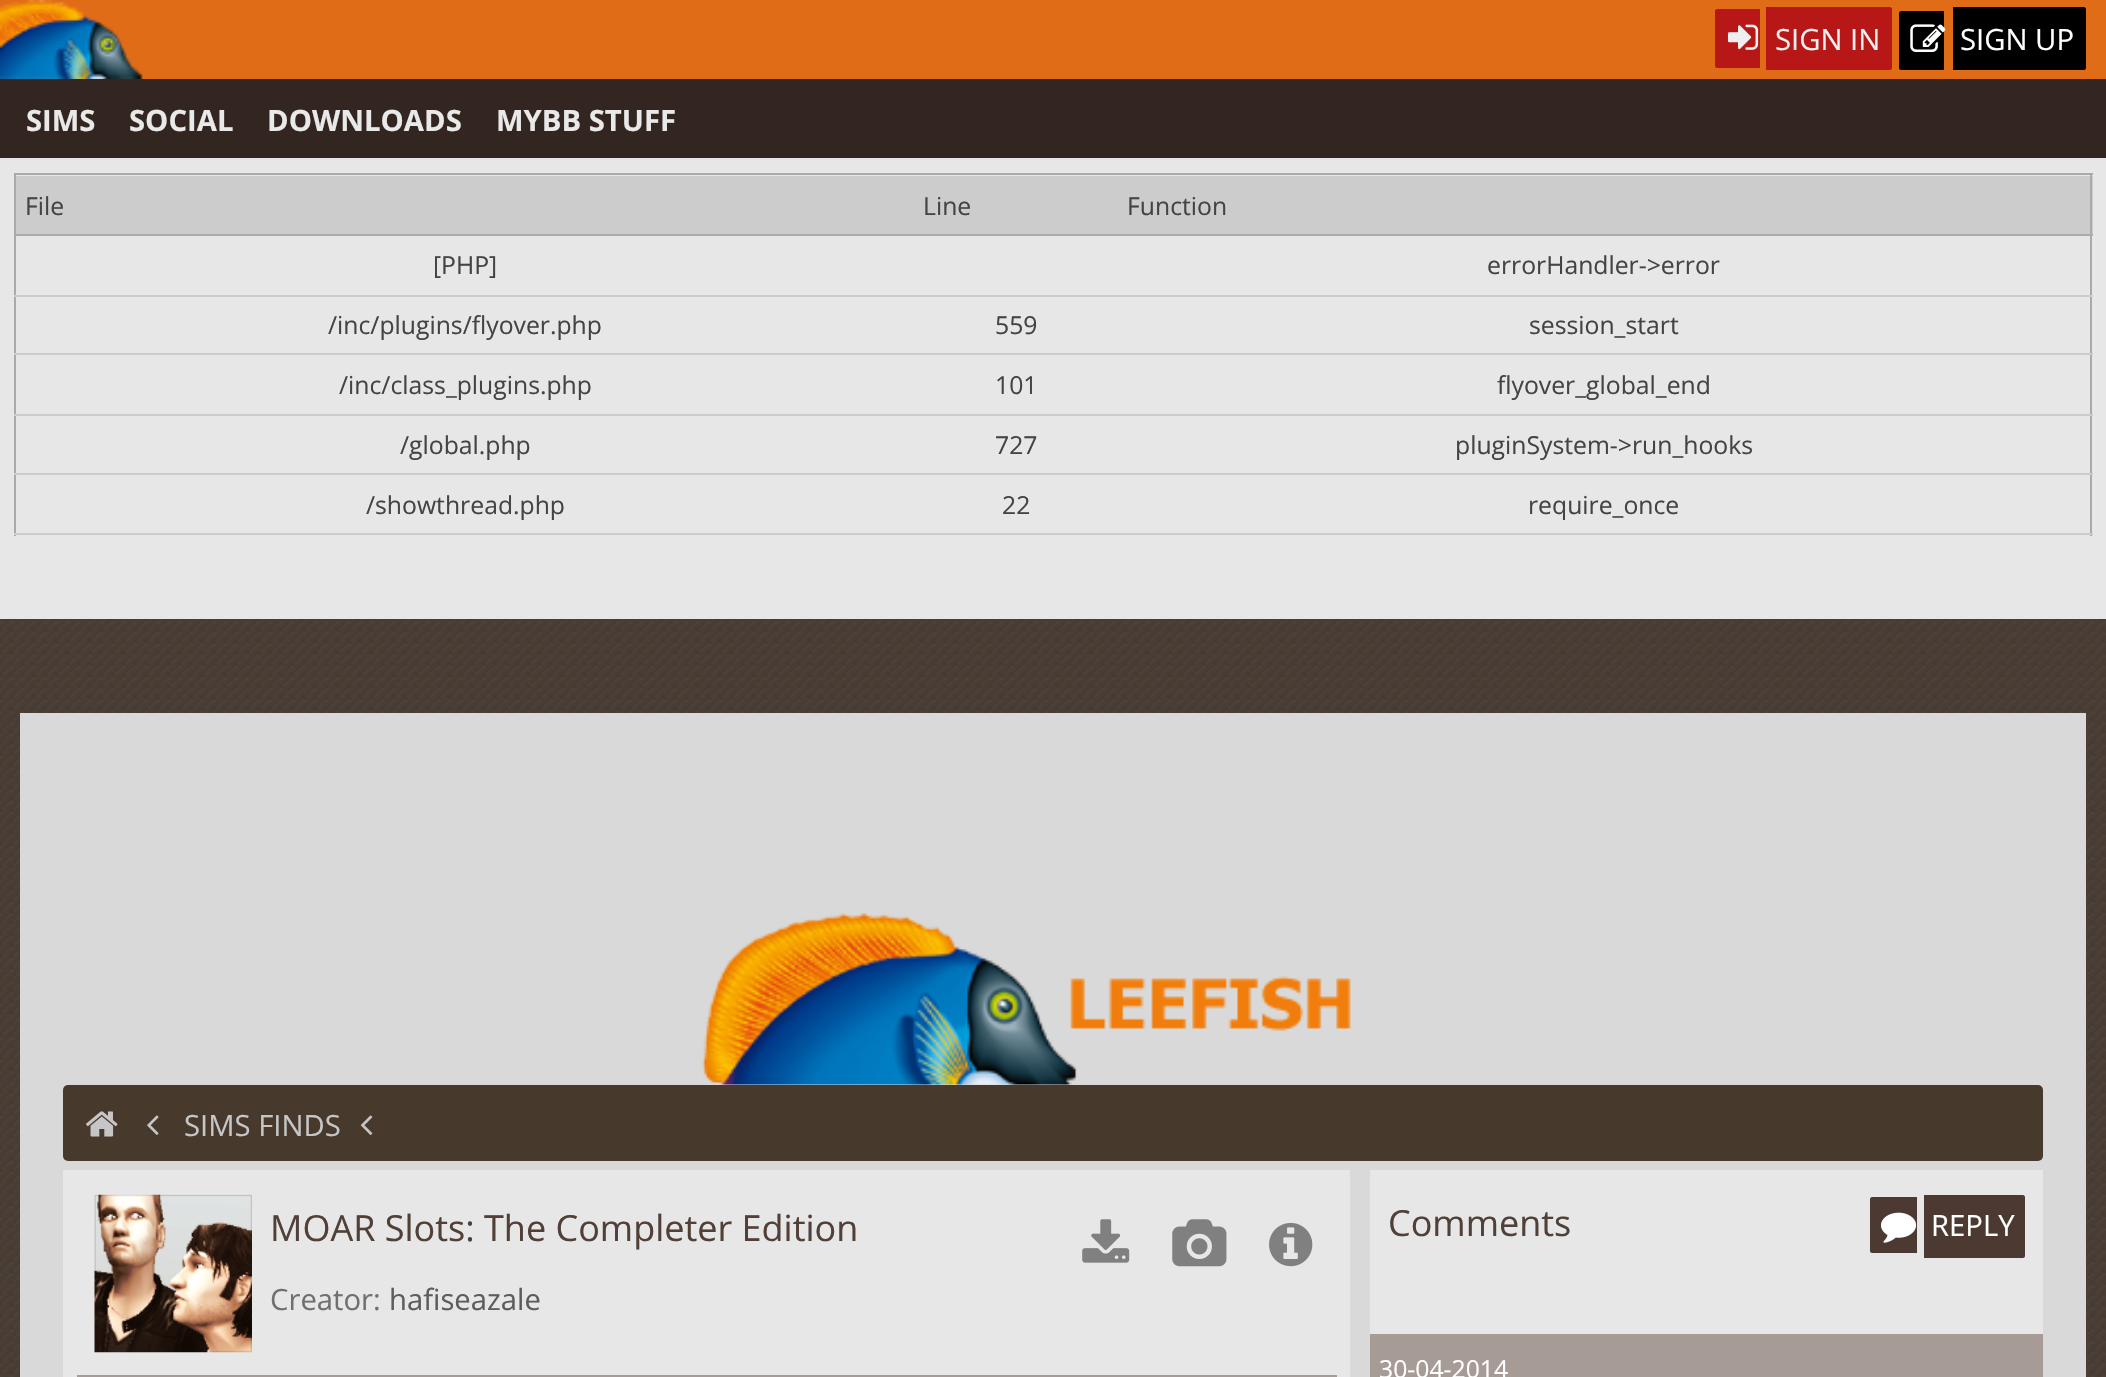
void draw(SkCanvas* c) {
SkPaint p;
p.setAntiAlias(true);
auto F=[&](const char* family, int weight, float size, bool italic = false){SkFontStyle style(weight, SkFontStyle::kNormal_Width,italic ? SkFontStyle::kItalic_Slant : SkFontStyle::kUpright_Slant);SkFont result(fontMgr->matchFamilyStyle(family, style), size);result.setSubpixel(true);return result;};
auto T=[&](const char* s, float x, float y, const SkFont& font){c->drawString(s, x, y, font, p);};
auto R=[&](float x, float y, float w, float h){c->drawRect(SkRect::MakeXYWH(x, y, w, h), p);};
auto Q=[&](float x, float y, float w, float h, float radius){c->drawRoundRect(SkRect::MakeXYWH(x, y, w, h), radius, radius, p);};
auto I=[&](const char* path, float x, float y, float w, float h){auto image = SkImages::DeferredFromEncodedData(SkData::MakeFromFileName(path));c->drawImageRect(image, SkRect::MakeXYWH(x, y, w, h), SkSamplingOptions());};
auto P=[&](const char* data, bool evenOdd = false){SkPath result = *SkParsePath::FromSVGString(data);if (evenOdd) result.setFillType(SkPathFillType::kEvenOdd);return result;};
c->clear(0xffffffff);
I("1.png",0,619,2106,758);
p.setColor(0xffe16c18);
R(0,0,2106,79);
I("2.png",0,0,143,79);
p.setColor(0xffb81717);
c->drawPath(P("M1717 9h43v59h-43c-1 0-2-1-2-2v-55c0-1 1-2 2-2z"),p);
c->drawPath(P("M1766 7h124c1 0 2 1 2 2v59c0 1-1 2-2 2h-124z"),p);
I("3.png",1727,24,32,26);
auto f1 = F("Open Sans",400,29.25);
p.setColor(0xffefefef);
T("SIGN IN",1775,50,f1);
p.setColor(0xff000000);
c->drawPath(P("M1901 11h43v59h-43c-1 0-2-1-2-2v-55c0-1 1-2 2-2z"),p);
c->drawPath(P("M1953 7h131c1 0 2 1 2 2v59c0 1-1 2-2 2h-131z"),p);
I("4.png",1910,24,36,28);
p.setColor(0xffffffff);
T("SIGN UP",1960,50,f1);
p.setColor(0xff332620);
R(0,79,2106,79);
auto f2 = F("Open Sans",700,29.25);
p.setColor(0xffe9e9e9);
T("SIMS",26,131,f2);
T("SOCIAL",129,131,f2);
T("DOWNLOADS",267,131,f2);
T("MYBB STUFF",496,131,f2);
p.setColor(0xffd9d9d9);
R(20,713,2066,664);
I("5.png",701,913,650,172);
p.setColor(0xff473a2d);
Q(63,1085,1980,76,5);
I("6.png",86,1111,32,26);
I("7.png",147,1115,12,20);
p.setColor(0xffc6c6c6);
T("SIMS FINDS",184,1136,f1);
I("8.png",360,1115,13,20);
p.setColor(0xffe7e7e7);
R(63,1170,1287,207);
I("9.png",94,1194,158,159);
auto f3 = F("Open Sans",400,36);
p.setColor(0xff504038);
T("MOAR Slots: The Completer Edition",270,1241,f3);
p.setColor(0xff707070);
T("Creator:",270,1310,f1);
p.setColor(0xff5c5c5c);
T("hafiseazale",389,1310,f1);
I("10.png",1082,1219,48,44);
I("11.png",1172,1219,55,48);
I("12.png",1269,1222,44,45);
p.setColor(0xffa69c95);
R(77,1375,1260,2);
p.setColor(0xffe7e7e7);
R(1370,1170,673,164);
p.setColor(0xff504038);
T("Comments",1388,1236,f3);
p.setColor(0xff4c3a32);
c->drawPath(P("M1872 1197h45v56h-45c-1 0-2-1-2-2v-52c0-1 1-2 2-2z"),p);
c->drawPath(P("M1924 1195h99c1 0 2 1 2 2v59c0 1-1 2-2 2h-99z"),p);
I("13.png",1881,1212,36,31);
p.setColor(0xffffffff);
T("REPLY",1931,1236,f1);
p.setColor(0xffa69c95);
R(1370,1334,673,43);
auto f4 = F("Open Sans",400,24.75);
p.setColor(0xffffffff);
T("30-04-2014",1379,1378,f4);
p.setColor(0xffe7e7e7);
R(0,158,2106,461);
p.setColor(0xffaaaaaa);
R(14,173,2079,2);
p.setColor(0xffcccccc);
R(16,176,2077,58);
p.setColor(0xffaaaaaa);
R(2090,173,2,363);
R(14,173,2,363);
p.setColor(0xff444444);
T("File",25,215,f4);
T("Line",923,215,f4);
p.setColor(0xffaaaaaa);
R(14,234,2079,2);
p.setColor(0xff444444);
T("Function",1127,215,f4);
T("[PHP]",433,274,f4);
p.setColor(0xffcccccc);
R(14,295,2079,2);
p.setColor(0xff444444);
T("errorHandler->error",1487,274,f4);
T("/inc/plugins/flyover.php",328,334,f4);
T("559",995,334,f4);
p.setColor(0xffcccccc);
R(14,353,2079,2);
p.setColor(0xff444444);
T("session_start",1529,334,f4);
T("/inc/class_plugins.php",339,394,f4);
T("101",995,394,f4);
p.setColor(0xffcccccc);
R(14,414,2079,2);
p.setColor(0xff444444);
T("flyover_global_end",1497,394,f4);
T("/global.php",400,454,f4);
T("727",995,454,f4);
p.setColor(0xffcccccc);
R(14,473,2079,2);
p.setColor(0xff444444);
T("pluginSystem->run_hooks",1455,454,f4);
T("/showthread.php",366,514,f4);
T("22",1002,514,f4);
p.setColor(0xffcccccc);
R(14,533,2079,2);
p.setColor(0xff444444);
T("require_once",1528,514,f4);
}
